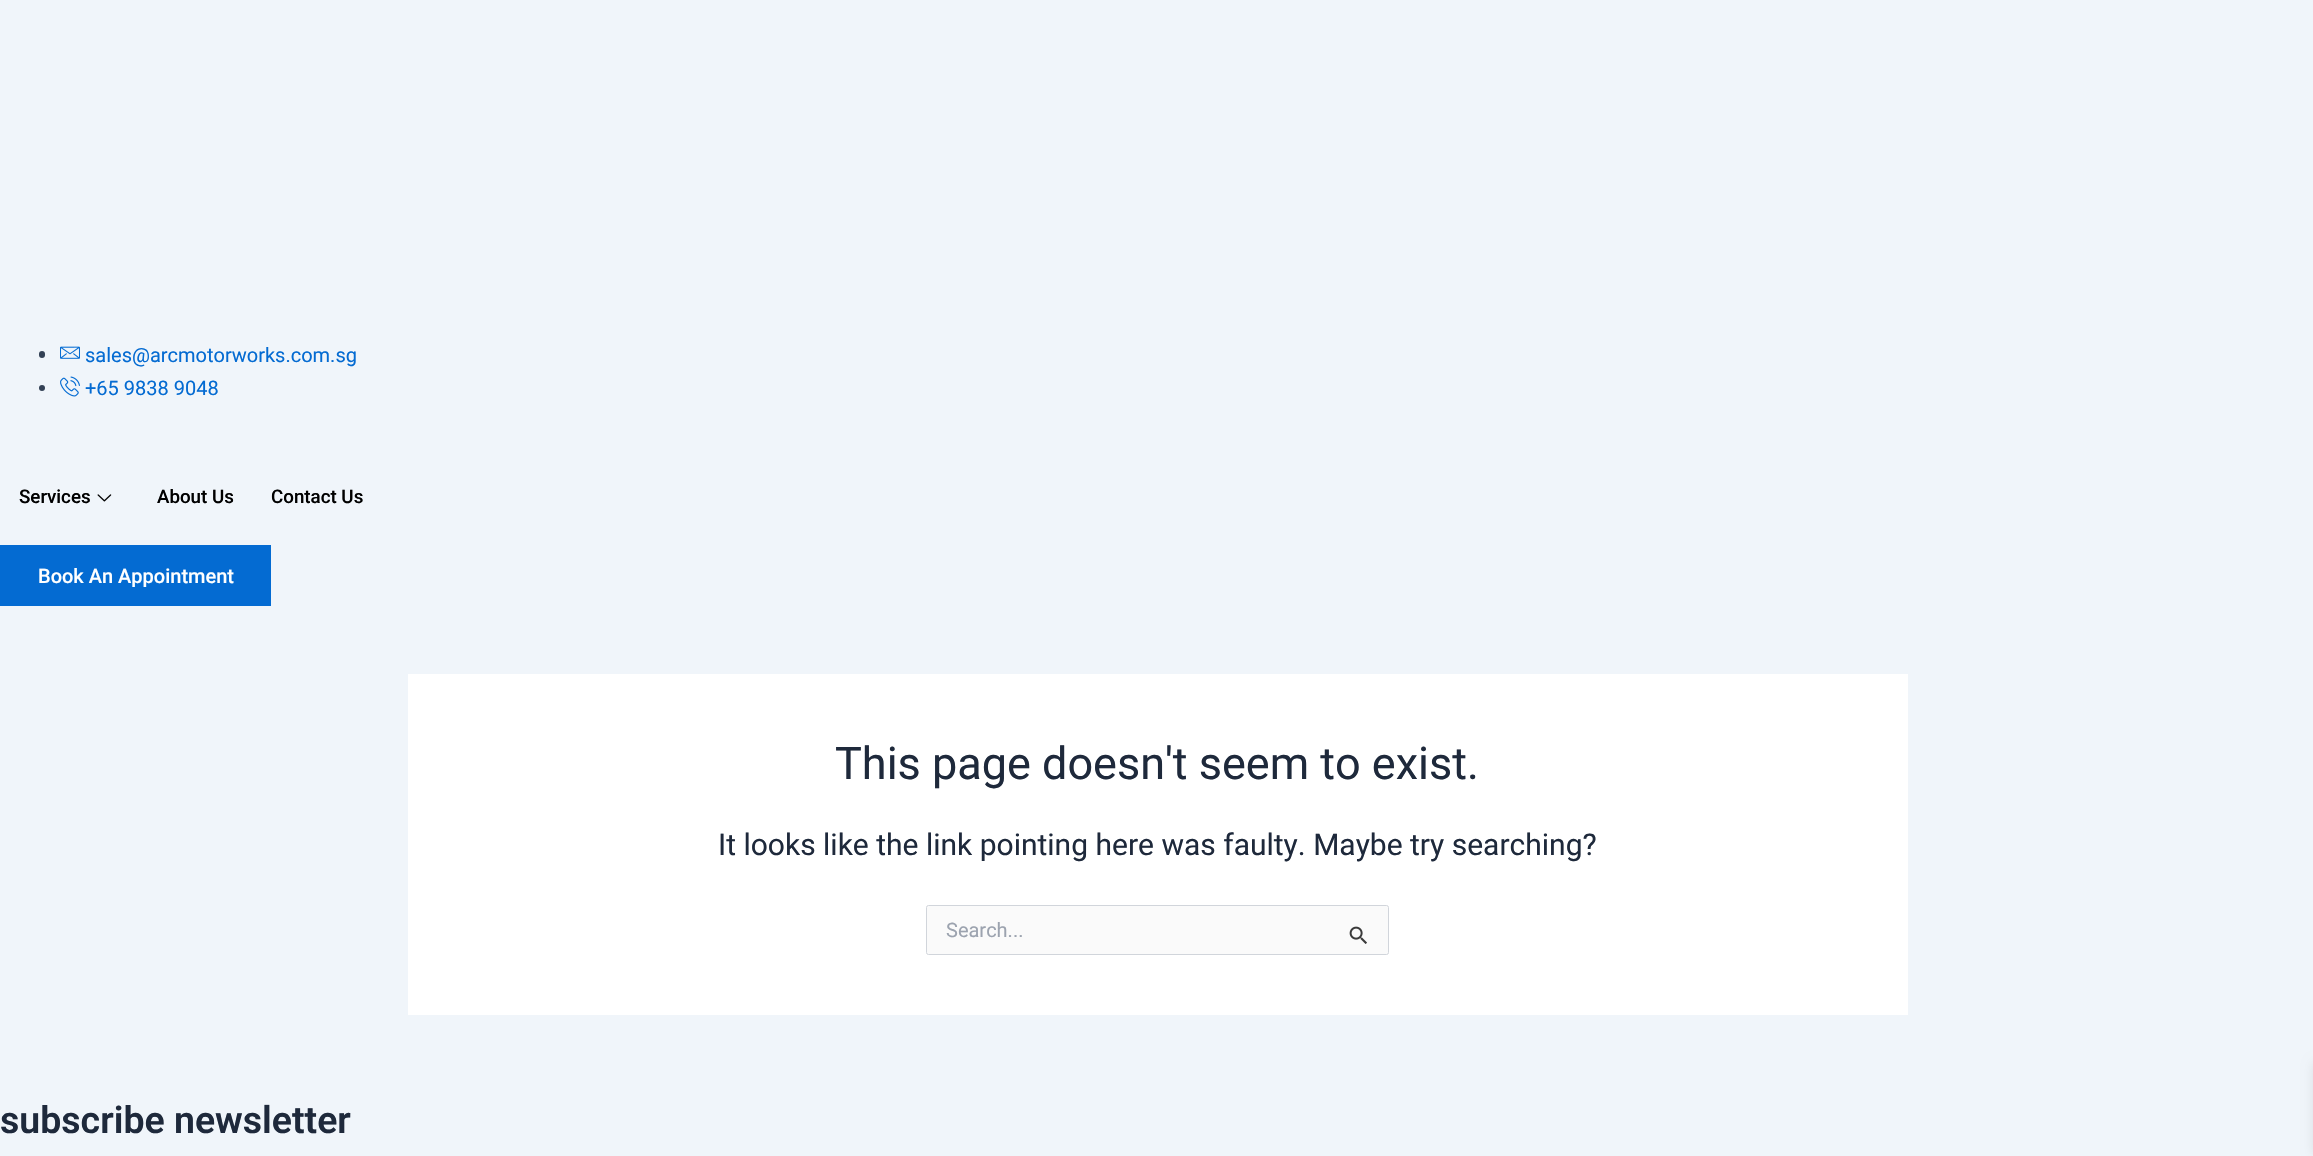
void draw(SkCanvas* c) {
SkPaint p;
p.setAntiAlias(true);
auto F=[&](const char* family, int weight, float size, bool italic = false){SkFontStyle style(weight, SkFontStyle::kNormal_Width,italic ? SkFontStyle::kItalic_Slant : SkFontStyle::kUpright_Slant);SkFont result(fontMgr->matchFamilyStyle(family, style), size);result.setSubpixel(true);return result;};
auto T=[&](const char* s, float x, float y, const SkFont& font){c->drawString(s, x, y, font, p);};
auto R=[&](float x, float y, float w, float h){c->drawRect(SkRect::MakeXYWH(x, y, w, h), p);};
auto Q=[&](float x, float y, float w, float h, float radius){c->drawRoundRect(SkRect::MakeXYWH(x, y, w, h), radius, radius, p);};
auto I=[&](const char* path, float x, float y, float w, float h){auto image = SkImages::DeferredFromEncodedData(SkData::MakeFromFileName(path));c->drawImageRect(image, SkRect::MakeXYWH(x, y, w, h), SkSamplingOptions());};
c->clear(0xfff0f5fa);
p.setColor(0xff334155);
Q(39,351,6,7,3);
I("1.png",60,346,20,13);
auto f1 = F("Roboto",400,20);
p.setColor(0xff046bd2);
T("sales@arcmotorworks.com.sg",85,362,f1);
p.setColor(0xff334155);
c->drawCircle(42,388,3,p);
I("2.png",60,376,20,21);
p.setColor(0xff046bd2);
T("+65 9838 9048",85,395,f1);
auto f2 = F("Roboto",500,18.75);
p.setColor(0xff000000);
T("Services",19,503,f2);
I("3.png",97,494,15,8);
T("About Us",157,503,f2);
T("Contact Us",271,503,f2);
p.setColor(0xff046bd2);
R(0,545,271,61);
auto f3 = F("Roboto",500,20);
p.setColor(0xffffffff);
T("Book An Appointment",38,583,f3);
R(408,674,1500,341);
auto f4 = F("Roboto",400,45);
p.setColor(0xff1e293b);
T("This page doesn't seem to exist.",835,779,f4);
auto f5 = F("Roboto",400,30);
T("It looks like the link pointing here was faulty. Maybe try searching?",718,855,f5);
p.setColor(0xfffafafa);
c->drawRoundRect(SkRect::MakeXYWH(926.5,905.5,462,49),2,2,p);
p.setStroke(true);
p.setStrokeWidth(1);
p.setColor(0xffd1d5db);
c->drawRoundRect(SkRect::MakeXYWH(926.5,905.5,462,49),2,2,p);
p.setStroke(false);
p.setColor(0xff9ca3af);
T("Search...",946,937,f1);
I("4.png",1349,926,18,18);
auto f6 = F("Roboto",600,37.5);
p.setColor(0xff1e293b);
T("subscribe newsletter",0,1133,f6);
p.setColor(0x1a000000);
p.setMaskFilter(SkMaskFilter::MakeBlur(kNormal_SkBlurStyle, 6));
c->drawRect(SkRect::MakeXYWH(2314,1063,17,92),p);
p.setMaskFilter(nullptr);
}
